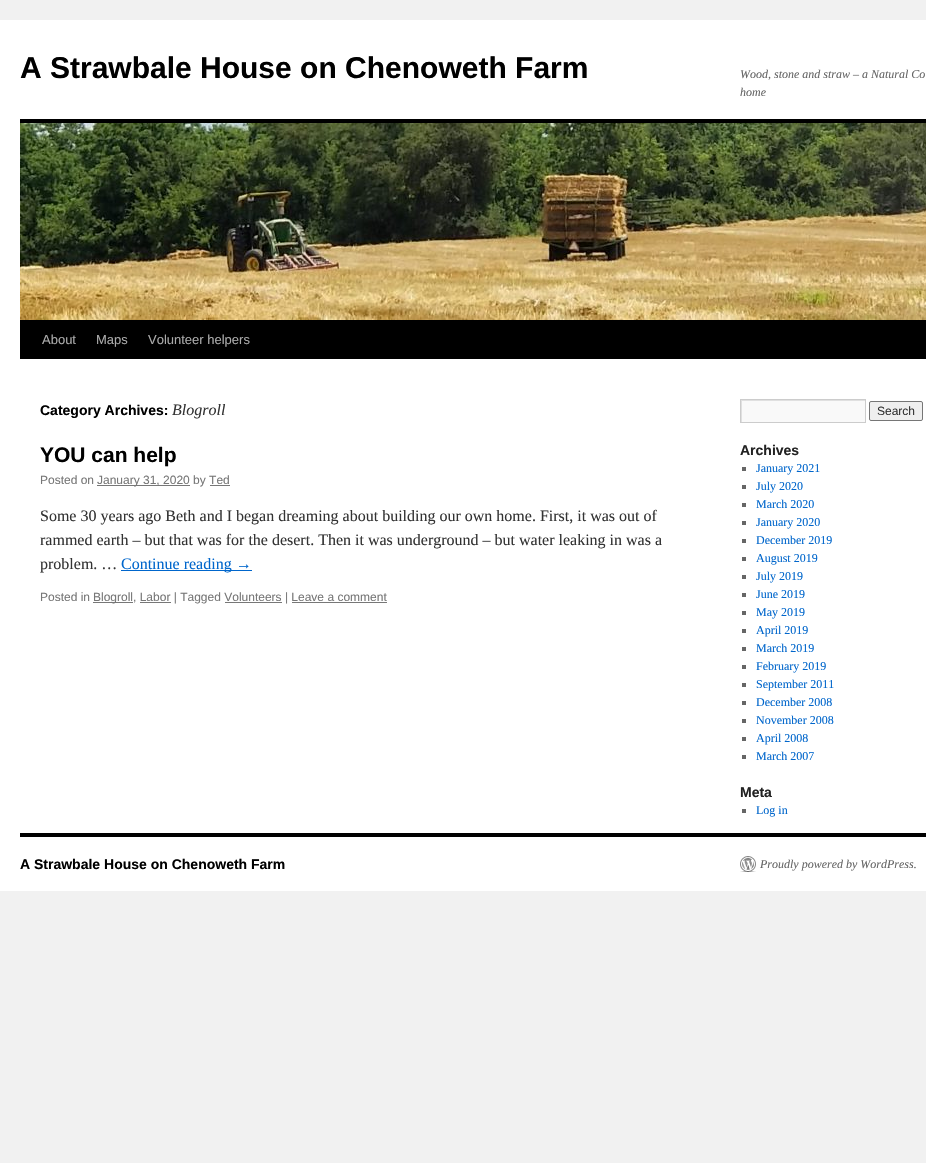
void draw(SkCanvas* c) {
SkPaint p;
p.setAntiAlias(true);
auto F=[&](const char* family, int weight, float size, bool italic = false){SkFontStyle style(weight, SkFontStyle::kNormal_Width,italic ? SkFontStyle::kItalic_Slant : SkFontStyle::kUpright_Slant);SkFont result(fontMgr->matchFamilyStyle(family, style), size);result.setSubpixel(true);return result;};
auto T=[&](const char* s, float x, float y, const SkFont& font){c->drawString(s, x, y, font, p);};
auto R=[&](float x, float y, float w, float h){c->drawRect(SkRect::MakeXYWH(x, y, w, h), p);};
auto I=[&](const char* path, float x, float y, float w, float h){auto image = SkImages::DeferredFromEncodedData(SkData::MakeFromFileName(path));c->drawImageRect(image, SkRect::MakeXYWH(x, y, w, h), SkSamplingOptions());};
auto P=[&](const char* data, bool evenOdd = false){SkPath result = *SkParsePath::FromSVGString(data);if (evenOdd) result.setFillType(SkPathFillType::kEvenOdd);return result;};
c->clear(0xfff1f1f1);
p.setColor(0xffffffff);
R(0,20,926,871);
auto f1 = F("Liberation Sans",700,30);
p.setColor(0xff000000);
T("A Strawbale House on Chenoweth Farm",20,78,f1);
auto f2 = F("Liberation Serif",400,12,true);
p.setColor(0xff666666);
T("Wood, stone and straw – a Natural Co",740,78,f2);
T("home",740,96,f2);
p.setColor(0xff000000);
R(20,119,906,4);
R(20,320,906,39);
I("1.png",20,123,906,197);
auto f3 = F("Liberation Sans",400,13);
p.setColor(0xffaaaaaa);
T("About",42,344,f3);
T("Maps",96,344,f3);
T("Volunteer helpers",148,344,f3);
auto f4 = F("Liberation Sans",700,14);
p.setColor(0xff000000);
T("Category Archives:",40,415,f4);
auto f5 = F("Liberation Serif",400,16,true);
p.setColor(0xff333333);
T("Blogroll",172,415,f5);
auto f6 = F("Liberation Sans",700,21);
p.setColor(0xff000000);
T("YOU can help",40,462,f6);
auto f7 = F("Liberation Sans",400,12);
p.setColor(0xff777777);
T("Posted on",40,484,f7);
R(97,485,93,1);
T("January 31, 2020 by Ted",97,484,f7);
R(210,485,20,1);
auto f8 = F("Liberation Serif",400,16);
p.setColor(0xff333333);
T("Some 30 years ago Beth and I began dreaming about building our own home. First, it was out of",40,521,f8);
T("rammed earth – but that was for the desert. Then it was underground – but water leaking in was a",40,545,f8);
T("problem. …",40,569,f8);
p.setColor(0xff0066cc);
R(121,570,131,1);
T("Continue reading →",121,569,f8);
p.setColor(0xff777777);
T("Posted in",40,601,f7);
R(93,602,40,1);
T("Blogroll, Labor | Tagged Volunteers | Leave a comment",93,601,f7);
R(140,602,31,1);
R(225,602,57,1);
R(292,602,95,1);
p.setColor(0xfff9f9f9);
R(742,401,123,21);
c->save();
c->clipRect(SkRect::MakeXYWH(741,400,124,22));
p.setColor(0xffe0e0e0);
c->drawPath(P("M642 301h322v220h-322zm100 100h124v22h-124z",true),p);
c->restore();
p.setStroke(true);
p.setStrokeWidth(1);
p.setColor(0xffcccccc);
c->drawRect(SkRect::MakeXYWH(740.5,399.5,125,23),p);
p.setStroke(false);
p.setColor(0xffefefef);
c->drawRoundRect(SkRect::MakeXYWH(869.5,401.5,53,19),1.5,1.5,p);
p.setStroke(true);
p.setColor(0xff767676);
c->drawRoundRect(SkRect::MakeXYWH(869.5,401.5,53,19),1.5,1.5,p);
p.setStroke(false);
p.setColor(0xff333333);
T("Search",877,415,f7);
p.setColor(0xff222222);
T("Archives",740,455,f4);
p.setColor(0xff666666);
R(742,467,4,4);
auto f9 = F("Liberation Serif",400,12);
p.setColor(0xff0066cc);
T("January 2021",756,472,f9);
p.setColor(0xff666666);
R(742,485,4,4);
p.setColor(0xff0066cc);
T("July 2020",756,490,f9);
p.setColor(0xff666666);
R(742,503,4,4);
p.setColor(0xff0066cc);
T("March 2020",756,508,f9);
p.setColor(0xff666666);
R(742,521,4,4);
p.setColor(0xff0066cc);
T("January 2020",756,526,f9);
p.setColor(0xff666666);
R(742,539,4,4);
p.setColor(0xff0066cc);
T("December 2019",756,544,f9);
p.setColor(0xff666666);
R(742,557,4,4);
p.setColor(0xff0066cc);
T("August 2019",756,562,f9);
p.setColor(0xff666666);
R(742,575,4,4);
p.setColor(0xff0066cc);
T("July 2019",756,580,f9);
p.setColor(0xff666666);
R(742,593,4,4);
p.setColor(0xff0066cc);
T("June 2019",756,598,f9);
p.setColor(0xff666666);
R(742,611,4,4);
p.setColor(0xff0066cc);
T("May 2019",756,616,f9);
p.setColor(0xff666666);
R(742,629,4,4);
p.setColor(0xff0066cc);
T("April 2019",756,634,f9);
p.setColor(0xff666666);
R(742,647,4,4);
p.setColor(0xff0066cc);
T("March 2019",756,652,f9);
p.setColor(0xff666666);
R(742,665,4,4);
p.setColor(0xff0066cc);
T("February 2019",756,670,f9);
p.setColor(0xff666666);
R(742,683,4,4);
p.setColor(0xff0066cc);
T("September 2011",756,688,f9);
p.setColor(0xff666666);
R(742,701,4,4);
p.setColor(0xff0066cc);
T("December 2008",756,706,f9);
p.setColor(0xff666666);
R(742,719,4,4);
p.setColor(0xff0066cc);
T("November 2008",756,724,f9);
p.setColor(0xff666666);
R(742,737,4,4);
p.setColor(0xff0066cc);
T("April 2008",756,742,f9);
p.setColor(0xff666666);
R(742,755,4,4);
p.setColor(0xff0066cc);
T("March 2007",756,760,f9);
p.setColor(0xff222222);
T("Meta",740,797,f4);
p.setColor(0xff666666);
R(742,809,4,4);
p.setColor(0xff0066cc);
T("Log in",756,814,f9);
p.setColor(0xff000000);
R(20,833,906,4);
T("A Strawbale House on Chenoweth Farm",20,869,f4);
I("2.png",740,856,16,16);
p.setColor(0xff666666);
T("Proudly powered by WordPress.",760,868,f2);
}
